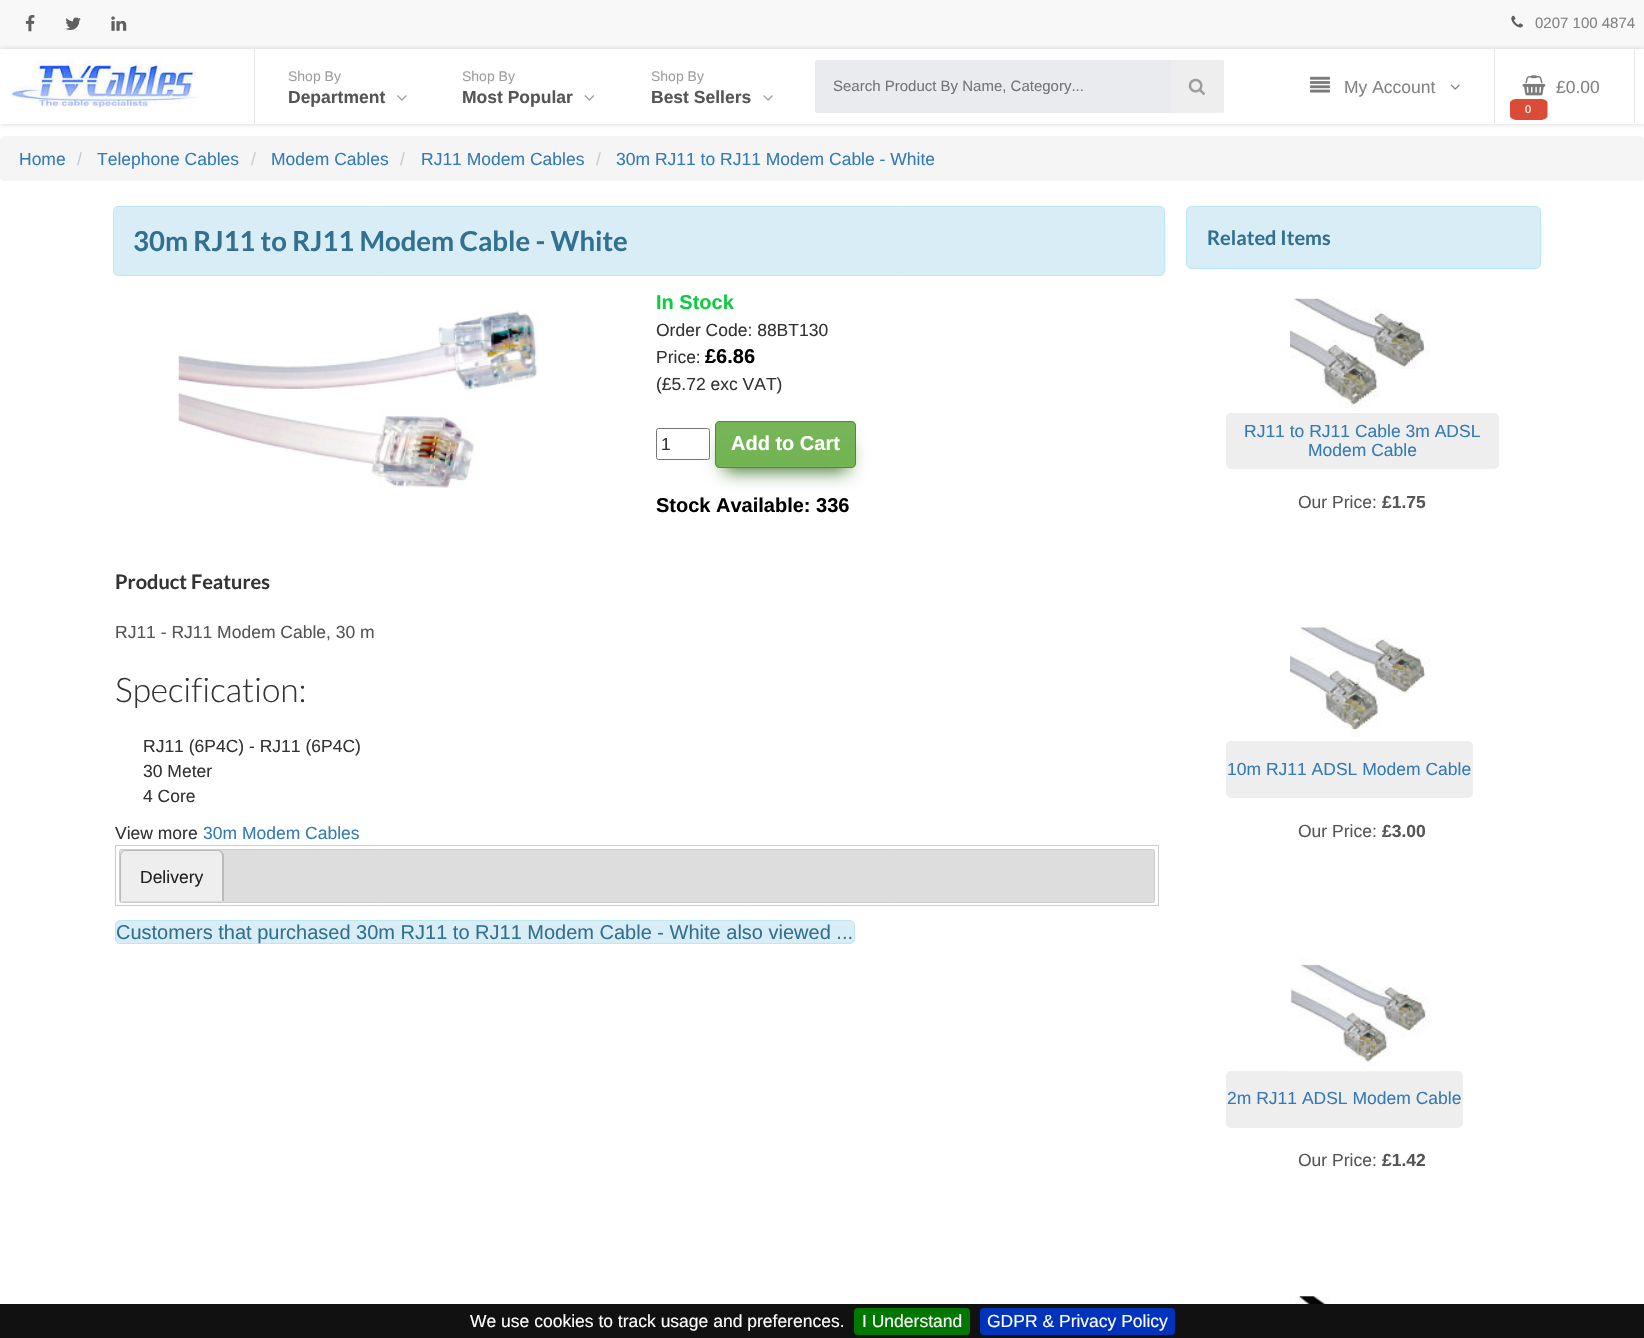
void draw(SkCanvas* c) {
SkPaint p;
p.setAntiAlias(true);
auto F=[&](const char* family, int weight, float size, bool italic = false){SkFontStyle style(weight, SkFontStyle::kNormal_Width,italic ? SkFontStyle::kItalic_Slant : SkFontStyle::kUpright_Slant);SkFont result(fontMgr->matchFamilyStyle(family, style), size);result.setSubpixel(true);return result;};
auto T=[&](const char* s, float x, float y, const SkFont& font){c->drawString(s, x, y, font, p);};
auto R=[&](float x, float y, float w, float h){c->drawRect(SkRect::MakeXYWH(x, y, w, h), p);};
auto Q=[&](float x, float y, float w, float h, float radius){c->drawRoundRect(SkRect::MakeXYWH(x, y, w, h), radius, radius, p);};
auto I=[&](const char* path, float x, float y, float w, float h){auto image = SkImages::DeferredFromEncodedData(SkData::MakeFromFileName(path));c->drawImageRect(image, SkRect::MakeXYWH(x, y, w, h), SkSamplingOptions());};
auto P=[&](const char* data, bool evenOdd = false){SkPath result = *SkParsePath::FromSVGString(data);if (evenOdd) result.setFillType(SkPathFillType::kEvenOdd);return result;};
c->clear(0xffffffff);
p.setColor(0xfff8f8f8);
R(0,0,1644,49);
I("1.png",25,15,10,17);
I("2.png",65,17,16,13);
I("3.png",111,16,16,15);
I("4.png",1511,15,12,13);
auto f1 = F("Liberation Sans",400,15);
p.setColor(0xff838383);
T("0207 100 4874",1535,28,f1);
p.setColor(0x29000000);
p.setMaskFilter(SkMaskFilter::MakeBlur(kNormal_SkBlurStyle, 2.5));
c->drawRect(SkRect::MakeXYWH(0,49,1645,75),p);
p.setMaskFilter(nullptr);
p.setColor(0xffffffff);
R(0,49,1644,75);
I("5.png",10,60,188,48);
p.setColor(0xffe6e6e6);
R(254,49,1,75);
auto f2 = F("Liberation Sans",400,14);
p.setColor(0xff9e9e9e);
T("Shop By",288,81,f2);
auto f3 = F("Liberation Sans",700,17.5);
p.setColor(0xff555555);
T("Department",288,103,f3);
I("6.png",397,95,10,6);
p.setColor(0xff9e9e9e);
T("Shop By",462,81,f2);
p.setColor(0xff555555);
T("Most Popular",462,103,f3);
I("7.png",584,95,11,6);
p.setColor(0xff9e9e9e);
T("Shop By",651,81,f2);
p.setColor(0xff555555);
T("Best Sellers",651,103,f3);
I("8.png",763,95,10,6);
p.setColor(0xffe9ebef);
Q(815,60,409,53,2.5);
p.setColor(0xff757575);
T("Search Product By Name, Category...",833,91,f1);
p.setColor(0xffeeeeee);
c->drawPath(P("M1171 60h50.5c1.5 0 2.5 1 2.5 2.5v48c0 1.5-1 2.5-2.5 2.5h-50.5z"),p);
I("9.png",1188,78,17,17);
I("10.png",1310,76,20,17);
auto f4 = F("Liberation Sans",400,17.5);
p.setColor(0xff838383);
T("My Account",1344,93,f4);
I("11.png",1450,84,10,6);
p.setColor(0xffe6e6e6);
R(1634,49,1,74);
R(1494,49,1,74);
I("12.png",1522,75,24,21);
p.setColor(0xff838383);
T("£0.00",1556,93,f4);
p.setColor(0xffda4b38);
c->drawPath(P("M1517.5 99h22.5c4 0 7.5 1.5 7.5 4v13c0 2-3.5 4-7.5 4h-22.5c-4 0-7.5-2-7.5-4v-13c0-2.5 3.5-4 7.5-4z"),p);
auto f5 = F("Liberation Sans",400,11);
p.setColor(0xffffffff);
T("0",1525,113,f5);
p.setColor(0xfff5f5f5);
Q(0,136,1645,45,5);
p.setColor(0xff337ab7);
T("Home",19,165,f4);
p.setColor(0xffcccccc);
T("/",77,165,f4);
p.setColor(0xff337ab7);
T("Telephone Cables",97,165,f4);
p.setColor(0xffcccccc);
T("/",251,165,f4);
p.setColor(0xff337ab7);
T("Modem Cables",271,165,f4);
p.setColor(0xffcccccc);
T("/",400,165,f4);
p.setColor(0xff337ab7);
T("RJ11 Modem Cables",421,165,f4);
p.setColor(0xffcccccc);
T("/",596,165,f4);
p.setColor(0xff337ab7);
T("30m RJ11 to RJ11 Modem Cable - White",616,165,f4);
p.setColor(0xffd9edf7);
c->drawRoundRect(SkRect::MakeXYWH(113.5,206.5,1051,69),4.5,4.5,p);
p.setStroke(true);
p.setStrokeWidth(1);
p.setColor(0xffbce8f1);
c->drawRoundRect(SkRect::MakeXYWH(113.5,206.5,1051,69),4.5,4.5,p);
auto f6 = F("Lato",700,27.5);
p.setStroke(false);
p.setColor(0xff31708f);
T("30m RJ11 to RJ11 Modem Cable - White",133,251,f6);
I("13.png",178,310,361,179);
auto f7 = F("Liberation Sans",700,20);
p.setColor(0xff0ecc41);
T("In Stock",656,309,f7);
p.setColor(0xff333333);
T("Order Code: 88BT130",656,336,f4);
T("Price:",656,363,f4);
p.setColor(0xff000000);
T("£6.86",705,363,f7);
p.setColor(0xff333333);
T("(£5.72 exc VAT)",656,390,f4);
p.setStroke(true);
p.setColor(0xff767676);
c->drawRoundRect(SkRect::MakeXYWH(656.5,428.5,53,31),2,2,p);
p.setStroke(false);
p.setColor(0xff333333);
T("1",661,450,f4);
p.setColor(0xff3e7327);
p.setMaskFilter(SkMaskFilter::MakeBlur(kNormal_SkBlurStyle, 9));
c->drawRect(SkRect::MakeXYWH(724,443,124,28),p);
p.setMaskFilter(nullptr);
c->save();
c->clipPath(P("M720 421h131c3 0 5 2 5 5v37c0 3-2 5-5 5h-131c-3 0-5-2-5-5v-37c0-3 2-5 5-5z"),true);
{
const SkColor colors[] = {0xff77b55a,0xff72b352};
const float stops[] = {.05,1};
const SkPoint ends[] = {{786,379}, {786,423}};
p.setShader(SkGradientShader::MakeLinear(ends, colors, stops, 2, SkTileMode::kClamp));
p.setAlpha(255);
}
R(715,421,141,2);
{
const SkColor colors[] = {0xff77b55a,0xff72b352};
const float stops[] = {.05,1};
const SkPoint ends[] = {{786,423}, {786,466}};
p.setShader(SkGradientShader::MakeLinear(ends, colors, stops, 2, SkTileMode::kClamp));
p.setAlpha(255);
}
R(715,423,141,43);
{
const SkColor colors[] = {0xff77b55a,0xff72b352};
const float stops[] = {.05,1};
const SkPoint ends[] = {{786,466}, {786,510}};
p.setShader(SkGradientShader::MakeLinear(ends, colors, stops, 2, SkTileMode::kClamp));
p.setAlpha(255);
}
R(715,466,141,2);
c->restore();
p.setStroke(true);
p.setShader(nullptr);
p.setColor(0xff4b8f29);
c->drawRoundRect(SkRect::MakeXYWH(715.5,421.5,140,46),4.5,4.5,p);
p.setStroke(false);
p.setColor(0xffffffff);
T("Add to Cart",731,450,f7);
p.setColor(0xff000000);
T("Stock Available: 336",656,512,f7);
auto f8 = F("Lato",700,20);
p.setColor(0xff333333);
T("Product Features",115,589,f8);
p.setColor(0xff555555);
T("RJ11 - RJ11 Modem Cable, 30 m",115,638,f4);
auto f9 = F("Lato",300,33.75);
p.setColor(0xff333333);
T("Specification:",115,702,f9);
T("RJ11 (6P4C) - RJ11 (6P4C)",143,752,f4);
T("30 Meter",143,777,f4);
T("4 Core",143,802,f4);
T("View more",115,839,f4);
p.setColor(0xff337ab7);
T("30m Modem Cables",203,839,f4);
p.setStroke(true);
p.setColor(0xffcccccc);
c->drawRect(SkRect::MakeXYWH(115.5,845.5,1043,60),p);
p.setStroke(false);
p.setColor(0xffdddddd);
c->drawRoundRect(SkRect::MakeXYWH(119.5,849.5,1035,53),2,2,p);
p.setStroke(true);
p.setColor(0xffcccccc);
c->drawRoundRect(SkRect::MakeXYWH(119.5,849.5,1035,53),2,2,p);
p.setStroke(false);
p.setColor(0xffeeeeee);
c->drawPath(P("M126 851h92c3 0 5 2 5 5v45h-102v-45c0-3 2-5 5-5z"),p);
p.setColor(0xffbbbbbb);
c->drawPath(P("M126 850h92c3 0 6 3 6 6v45h-104v-45c0-3 3-6 6-6zm0 1h92c2 0 4 2 4 5v45h-101v-45c0-3 2-5 5-5z",true),p);
p.setColor(0xff222222);
T("Delivery",140,883,f4);
p.setColor(0xffd9edf7);
c->drawRoundRect(SkRect::MakeXYWH(115.5,920.5,739,23),4.5,4.5,p);
p.setStroke(true);
p.setColor(0xffbce8f1);
c->drawRoundRect(SkRect::MakeXYWH(115.5,920.5,739,23),4.5,4.5,p);
auto f10 = F("Liberation Sans",400,20);
p.setStroke(false);
p.setColor(0xff31708f);
T("Customers that purchased 30m RJ11 to RJ11 Modem Cable - White also viewed ...",116,939,f10);
p.setColor(0xffd9edf7);
c->drawRoundRect(SkRect::MakeXYWH(1186.5,206.5,354,62),4.5,4.5,p);
p.setStroke(true);
p.setColor(0xffbce8f1);
c->drawRoundRect(SkRect::MakeXYWH(1186.5,206.5,354,62),4.5,4.5,p);
p.setStroke(false);
p.setColor(0xff31708f);
T("Related Items",1207,245,f8);
I("14.png",1290,298,140,111);
p.setColor(0xffeeeeee);
Q(1226,413,273,56,5);
p.setColor(0xff337ab7);
T("RJ11 to RJ11 Cable 3m ADSL",1244,437,f4);
T("Modem Cable",1308,456,f4);
p.setColor(0xff555555);
T("Our Price:",1298,508,f4);
T("£1.75",1382,508,f3);
p.setColor(0xffeeeeee);
Q(1226,741,247,57,5);
I("15.png",1290,627,145,115);
p.setColor(0xff337ab7);
T("10m RJ11 ADSL Modem Cable",1227,775,f4);
p.setColor(0xff555555);
T("Our Price:",1298,837,f4);
T("£3.00",1382,837,f3);
p.setColor(0xffeeeeee);
Q(1226,1071,237,57,5);
I("16.png",1290,959,145,113);
p.setColor(0xff337ab7);
T("2m RJ11 ADSL Modem Cable",1227,1104,f4);
p.setColor(0xff555555);
T("Our Price:",1298,1166,f4);
T("£1.42",1382,1166,f3);
I("17.png",1290,1296,140,8);
p.setColor(0xff111111);
R(0,1304,1644,34);
p.setColor(0xffffffff);
T("We use cookies to track usage and preferences.",470,1327,f4);
p.setColor(0xff007700);
Q(854,1308,116,27,4);
p.setColor(0xffffffff);
T("I Understand",862,1327,f4);
p.setColor(0xff0033bb);
Q(980,1308,195,27,4);
p.setColor(0xffffffff);
T("GDPR & Privacy Policy",987,1327,f4);
}
